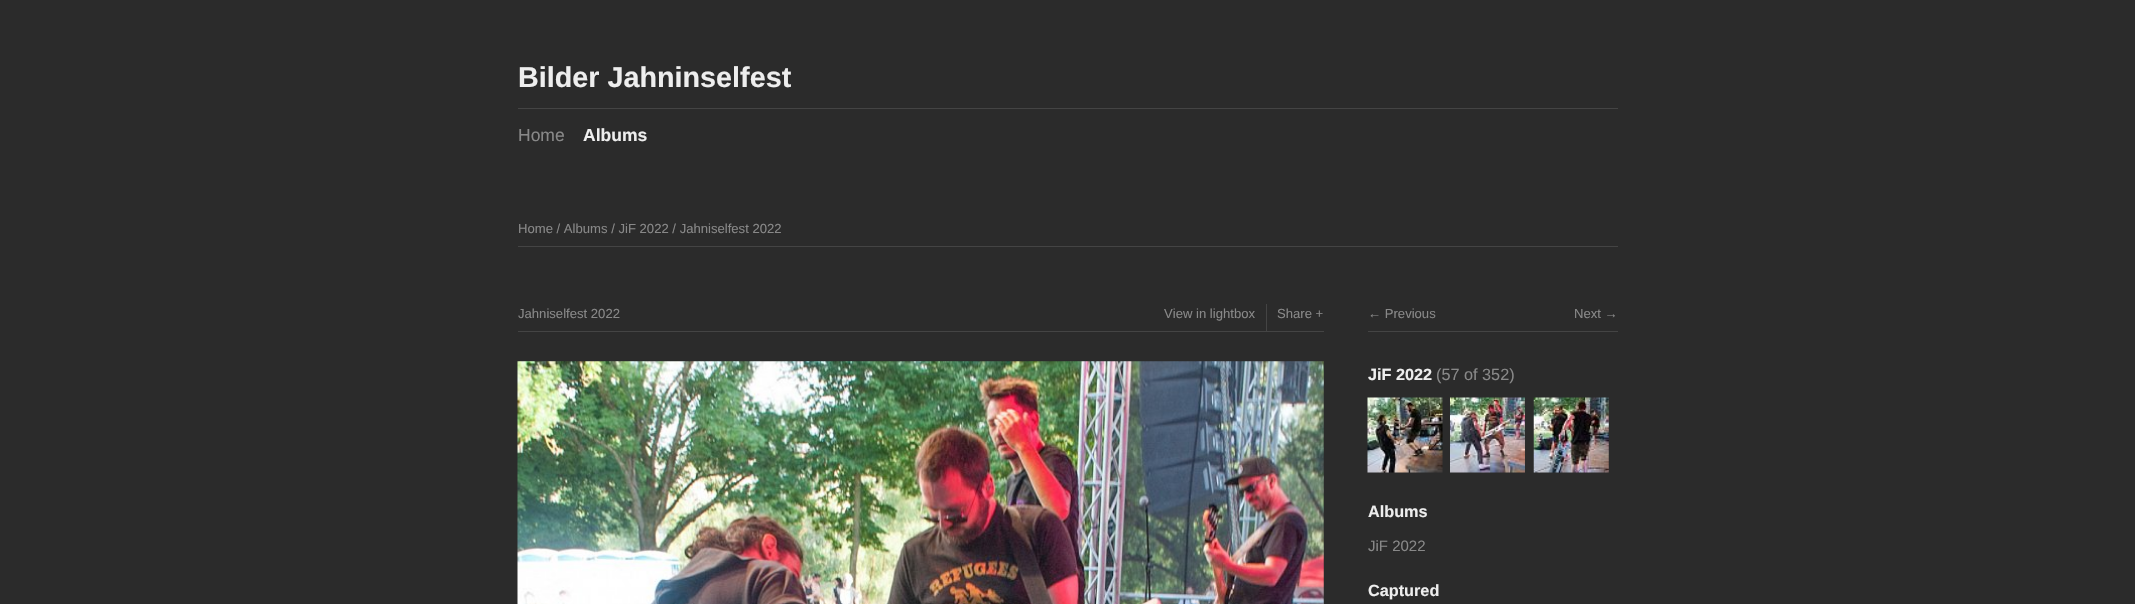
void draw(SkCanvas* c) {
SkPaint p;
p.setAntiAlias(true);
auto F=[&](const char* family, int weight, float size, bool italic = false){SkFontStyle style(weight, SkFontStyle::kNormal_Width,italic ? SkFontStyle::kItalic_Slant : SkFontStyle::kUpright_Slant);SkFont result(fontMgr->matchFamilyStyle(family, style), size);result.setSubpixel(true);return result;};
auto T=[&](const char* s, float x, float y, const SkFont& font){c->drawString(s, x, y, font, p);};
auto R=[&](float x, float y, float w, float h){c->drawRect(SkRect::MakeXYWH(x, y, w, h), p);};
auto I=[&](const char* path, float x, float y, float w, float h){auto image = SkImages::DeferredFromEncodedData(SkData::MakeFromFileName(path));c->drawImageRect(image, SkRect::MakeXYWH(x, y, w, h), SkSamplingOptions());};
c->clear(0xff2b2b2b);
auto f1 = F("Liberation Sans",700,28.75);
p.setColor(0xffeeeeee);
T("Bilder Jahninselfest",518,87,f1);
p.setColor(0xff444444);
R(518,108,1100,1);
auto f2 = F("Liberation Sans",400,17.5);
p.setColor(0xff888888);
T("Home",518,141,f2);
auto f3 = F("Liberation Sans",700,17.5);
p.setColor(0xffeeeeee);
T("Albums",583,141,f3);
p.setColor(0xff444444);
R(518,246,1100,1);
auto f4 = F("Liberation Sans",400,13.1);
p.setColor(0xff888888);
T("Home / Albums / JiF 2022 / Jahniselfest 2022",518,233,f4);
p.setColor(0xff444444);
R(518,331,806,1);
p.setColor(0xff888888);
T("Jahniselfest 2022",518,318,f4);
T("View in lightbox",1164,318,f4);
p.setColor(0xff444444);
R(1266,304,1,27);
p.setColor(0xff888888);
T("Share +",1277,318,f4);
I("1.png",517,361,807,243);
p.setColor(0xff444444);
R(1368,331,250,1);
p.setColor(0xff888888);
T("← Previous",1368,318,f4);
T("Next →",1574,318,f4);
auto f5 = F("Liberation Sans",700,16.25);
p.setColor(0xffeeeeee);
T("JiF 2022",1368,380,f5);
auto f6 = F("Liberation Sans",400,16.25);
p.setColor(0xff888888);
T("(57 of 352)",1436,380,f6);
I("2.png",1367,397,76,76);
I("3.png",1450,397,75,76);
I("4.png",1533,397,76,76);
p.setColor(0xffeeeeee);
T("Albums",1368,517,f5);
auto f7 = F("Liberation Sans",400,15);
p.setColor(0xff888888);
T("JiF 2022",1368,551,f7);
p.setColor(0xffeeeeee);
T("Captured",1368,596,f5);
}
